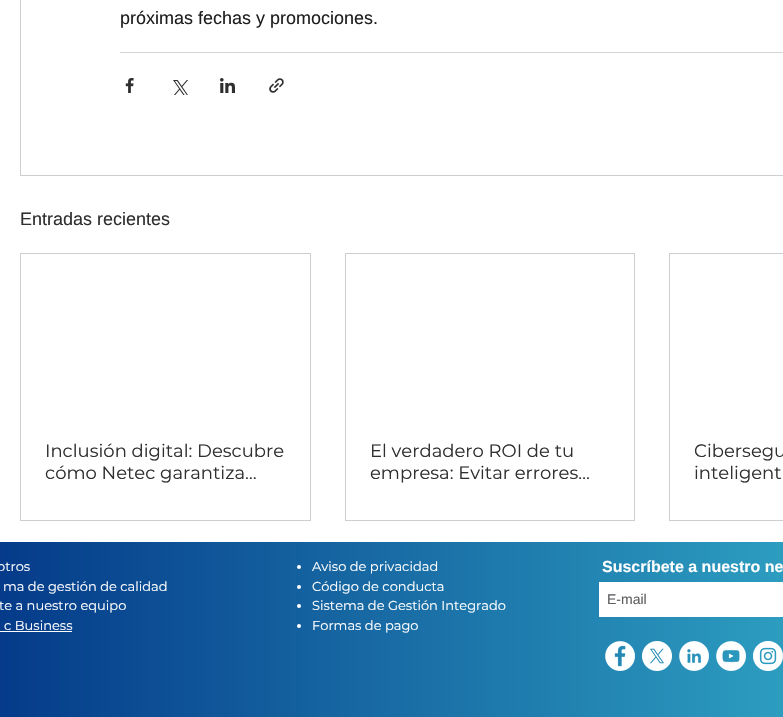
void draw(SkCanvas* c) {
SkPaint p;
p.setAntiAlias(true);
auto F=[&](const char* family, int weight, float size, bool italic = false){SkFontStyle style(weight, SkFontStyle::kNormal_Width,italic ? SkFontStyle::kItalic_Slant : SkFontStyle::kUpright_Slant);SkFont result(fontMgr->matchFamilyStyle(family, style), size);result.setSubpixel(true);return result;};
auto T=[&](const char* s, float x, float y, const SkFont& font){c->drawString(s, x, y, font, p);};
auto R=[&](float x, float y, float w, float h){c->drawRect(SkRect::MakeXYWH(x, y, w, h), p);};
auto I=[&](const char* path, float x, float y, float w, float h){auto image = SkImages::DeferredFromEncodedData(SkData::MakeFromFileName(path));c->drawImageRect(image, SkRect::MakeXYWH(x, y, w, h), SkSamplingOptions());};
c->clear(0xffffffff);
p.setStroke(true);
p.setStrokeWidth(1);
p.setColor(0xffcecdd1);
c->drawRect(SkRect::MakeXYWH(20.5,-.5,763,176),p);
auto f1 = F("Liberation Sans",400,18);
p.setStroke(false);
p.setColor(0xff1f1f1f);
T("próximas fechas y promociones.",120,24,f1);
p.setColor(0xffd5d5d6);
R(120,52,663,1);
I("1.png",125,78,9,15);
I("2.png",173,80,15,15);
I("3.png",220,78,15,15);
I("4.png",269,78,15,15);
p.setColor(0xff2f2f30);
T("Entradas recientes",20,225,f1);
p.setStroke(true);
p.setColor(0xffcecdd1);
c->drawRect(SkRect::MakeXYWH(20.5,253.5,290,267),p);
auto f2 = F("Montserrat",400,18);
p.setStroke(false);
p.setColor(0xff2f2f30);
T("Inclusión digital: Descubre",45,457,f2);
T("cómo Netec garantiza…",45,479,f2);
p.setStroke(true);
p.setColor(0xffcecdd1);
c->drawRect(SkRect::MakeXYWH(345.5,253.5,289,267),p);
p.setStroke(false);
p.setColor(0xff2f2f30);
T("El verdadero ROI de tu",370,457,f2);
T("empresa: Evitar errores…",370,479,f2);
p.setStroke(true);
p.setColor(0xffcecdd1);
c->drawRect(SkRect::MakeXYWH(669.5,253.5,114,267),p);
p.setStroke(false);
p.setColor(0xff2f2f30);
T("Cibersegu",694,457,f2);
T("inteligent",694,479,f2);
{
const SkColor colors[] = {0xff053b8a,0xff36b5cd};
const float stops[] = {0,1};
const SkPoint ends[] = {{0,693}, {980,693}};
p.setShader(SkGradientShader::MakeLinear(ends, colors, stops, 2, SkTileMode::kClamp));
p.setAlpha(255);
}
R(0,542,783,175);
auto f3 = F("Montserrat",400,13);
p.setShader(nullptr);
p.setColor(0xffffffff);
T("otros",-3,571,f3);
T("ma de gestión de calidad",3,591,f3);
T("te a nuestro equipo",-1,610,f3);
T("c Business",4,630,f3);
R(0,631,72,1);
c->drawCircle(299,567,2,p);
T("Aviso de privacidad",312,571,f3);
c->drawCircle(299,587,2,p);
T("Código de conducta",312,591,f3);
c->drawCircle(299,606,2,p);
T("Sistema de Gestión Integrado",312,610,f3);
c->drawCircle(299,626,2,p);
T("Formas de pago",312,630,f3);
auto f4 = F("Liberation Sans",700,16);
T("Suscríbete a nuestro ne",602,572,f4);
R(599,582,184,35);
auto f5 = F("Liberation Sans",400,14);
p.setColor(0xff5f5e61);
T("E-mail",607,604,f5);
I("5.png",605,641,30,30);
I("6.png",642,641,30,30);
I("7.png",679,641,30,30);
I("8.png",716,641,30,30);
I("9.png",753,641,30,30);
}
